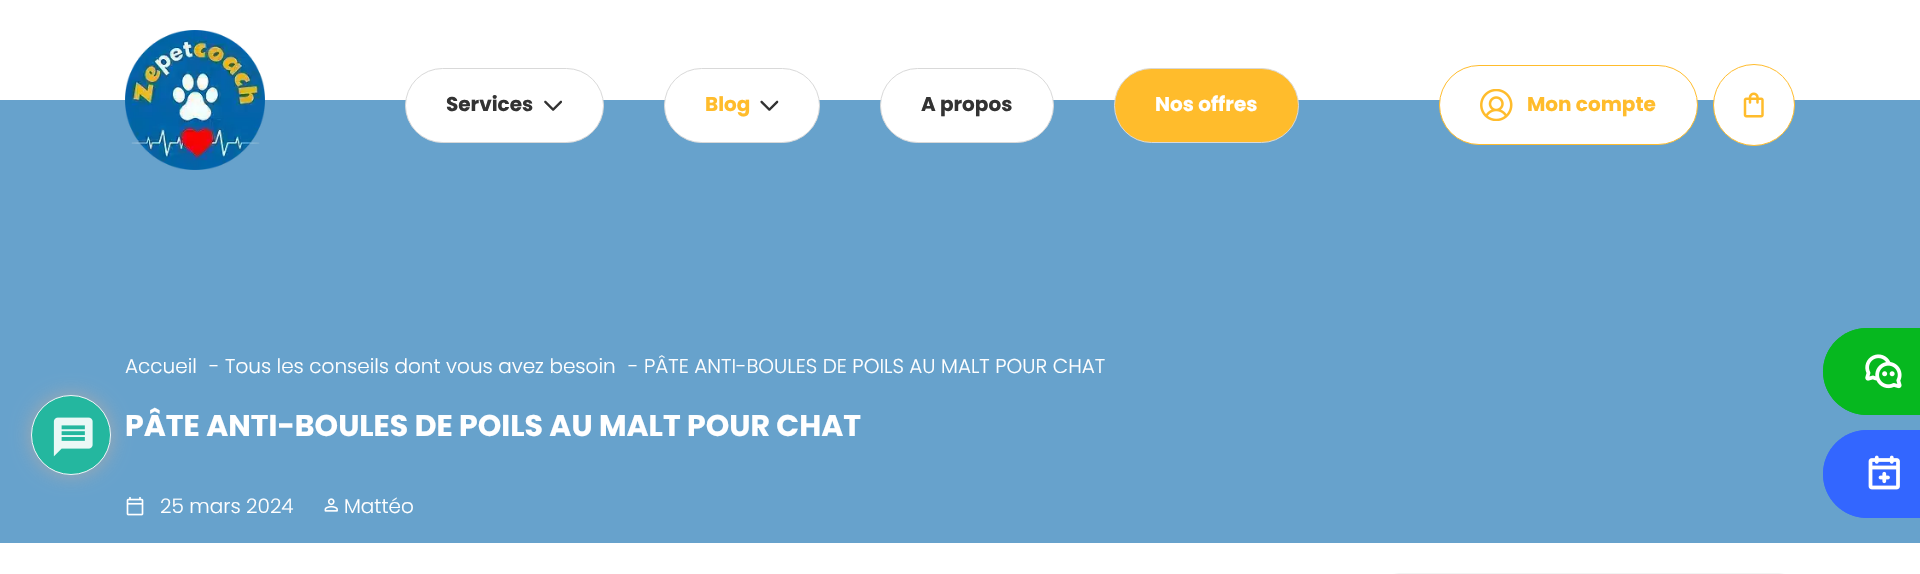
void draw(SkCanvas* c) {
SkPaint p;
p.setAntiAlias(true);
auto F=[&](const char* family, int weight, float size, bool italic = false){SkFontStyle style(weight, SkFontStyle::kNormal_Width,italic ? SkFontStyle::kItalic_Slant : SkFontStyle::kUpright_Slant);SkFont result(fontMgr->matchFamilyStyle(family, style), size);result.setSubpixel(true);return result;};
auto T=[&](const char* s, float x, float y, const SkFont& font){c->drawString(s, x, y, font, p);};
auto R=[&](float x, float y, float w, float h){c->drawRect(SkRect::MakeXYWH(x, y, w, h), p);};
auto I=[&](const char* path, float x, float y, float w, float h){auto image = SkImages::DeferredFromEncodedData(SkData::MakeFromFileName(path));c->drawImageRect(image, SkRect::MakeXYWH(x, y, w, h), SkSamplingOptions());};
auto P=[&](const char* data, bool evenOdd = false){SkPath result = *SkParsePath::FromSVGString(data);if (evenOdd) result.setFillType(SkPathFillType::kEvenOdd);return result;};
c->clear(0xffffffff);
p.setColor(0xff67a2cc);
R(0,100,1920,443);
I("7.png",126,497,18,19);
p.setColor(0xe6aaaaaa);
p.setMaskFilter(SkMaskFilter::MakeBlur(kNormal_SkBlurStyle, 9.5));
c->drawRoundRect(SkRect::MakeXYWH(31,395,80,80),40,40,p);
p.setMaskFilter(nullptr);
p.setColor(0xff24b79f);
c->drawCircle(71,435,39.5,p);
p.setStroke(true);
p.setStrokeWidth(1);
p.setColor(0xfff0f6fa);
c->drawCircle(71,435,39.5,p);
I("1.png",53,417,40,40);
I("2.png",125,30,140,140);
p.setStroke(false);
p.setColor(0xffffffff);
c->drawRoundRect(SkRect::MakeXYWH(405.5,68.5,198,74),37,37,p);
p.setStroke(true);
p.setColor(0xffd9d9d9);
c->drawRoundRect(SkRect::MakeXYWH(405.5,68.5,198,74),37,37,p);
auto f1 = F("Poppins",700,20);
p.setStroke(false);
p.setColor(0xff333333);
T("Services",446,111,f1);
I("3.png",544,100,18,11);
p.setColor(0xffffffff);
c->drawRoundRect(SkRect::MakeXYWH(664.5,68.5,155,74),37,37,p);
p.setStroke(true);
p.setColor(0xffd9d9d9);
c->drawRoundRect(SkRect::MakeXYWH(664.5,68.5,155,74),37,37,p);
p.setStroke(false);
p.setColor(0xffffbc2c);
T("Blog",705,111,f1);
I("4.png",760,100,19,11);
p.setColor(0xffffffff);
c->drawRoundRect(SkRect::MakeXYWH(880.5,68.5,173,74),37,37,p);
p.setStroke(true);
p.setColor(0xffd9d9d9);
c->drawRoundRect(SkRect::MakeXYWH(880.5,68.5,173,74),37,37,p);
p.setStroke(false);
p.setColor(0xff333333);
T("A propos",921,111,f1);
p.setColor(0xffffbc2c);
c->drawRoundRect(SkRect::MakeXYWH(1114.5,68.5,184,74),37,37,p);
p.setStroke(true);
p.setColor(0xffd9d9d9);
c->drawRoundRect(SkRect::MakeXYWH(1114.5,68.5,184,74),37,37,p);
p.setStroke(false);
p.setColor(0xffffffff);
T("Nos offres",1155,111,f1);
c->drawRoundRect(SkRect::MakeXYWH(1439.5,65.5,258,79),39.5,39.5,p);
p.setStroke(true);
p.setColor(0xffffbc2c);
c->drawRoundRect(SkRect::MakeXYWH(1439.5,65.5,258,79),39.5,39.5,p);
I("5.png",1480,89,33,32);
p.setStroke(false);
T("Mon compte",1527,111,f1);
p.setColor(0xffffffff);
c->drawCircle(1754,105,40.5,p);
p.setStroke(true);
p.setColor(0xffffbc2c);
c->drawCircle(1754,105,40.5,p);
I("6.png",1743,92,21,26);
auto f2 = F("Poppins",300,20);
p.setStroke(false);
p.setColor(0xffffffff);
T("Accueil",125,373,f2);
T("-",209,373,f2);
T("Tous les conseils dont vous avez besoin",225,373,f2);
T("-",628,373,f2);
T("PÂTE ANTI-BOULES DE POILS AU MALT POUR CHAT",644,373,f2);
auto f3 = F("Poppins",700,30);
T("PÂTE ANTI-BOULES DE POILS AU MALT POUR CHAT",125,436,f3);
T("25 mars 2024",160,513,f2);
I("8.png",324,498,14,14);
T("Mattéo",344,513,f2);
p.setColor(0xff06b81f);
c->drawPath(P("M1866.5 328h53.5v87h-53.5c-24 0-43.5-19.5-43.5-43.5c0-24 19.5-43.5 43.5-43.5z"),p);
p.setStroke(true);
c->drawPath(P("M1866.5 328.5h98v86h-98c-23.5 0-43-19.5-43-43c0-23.5 19.5-43 43-43z"),p);
I("9.png",1865,354,37,35);
p.setStroke(false);
p.setColor(0xff3366ff);
c->drawPath(P("M1867 430h53v88h-53c-24.5 0-44-19.5-44-44c0-24.5 19.5-44 44-44z"),p);
p.setStroke(true);
c->drawPath(P("M1867 430.5h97.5v87h-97.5c-24 0-43.5-19.5-43.5-43.5c0-24 19.5-43.5 43.5-43.5z"),p);
I("10.png",1868,455,32,35);
p.setColor(0xfff3f3f3);
c->drawRoundRect(SkRect::MakeXYWH(1383.5,573.5,411,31),29.5,29.5,p);
}
